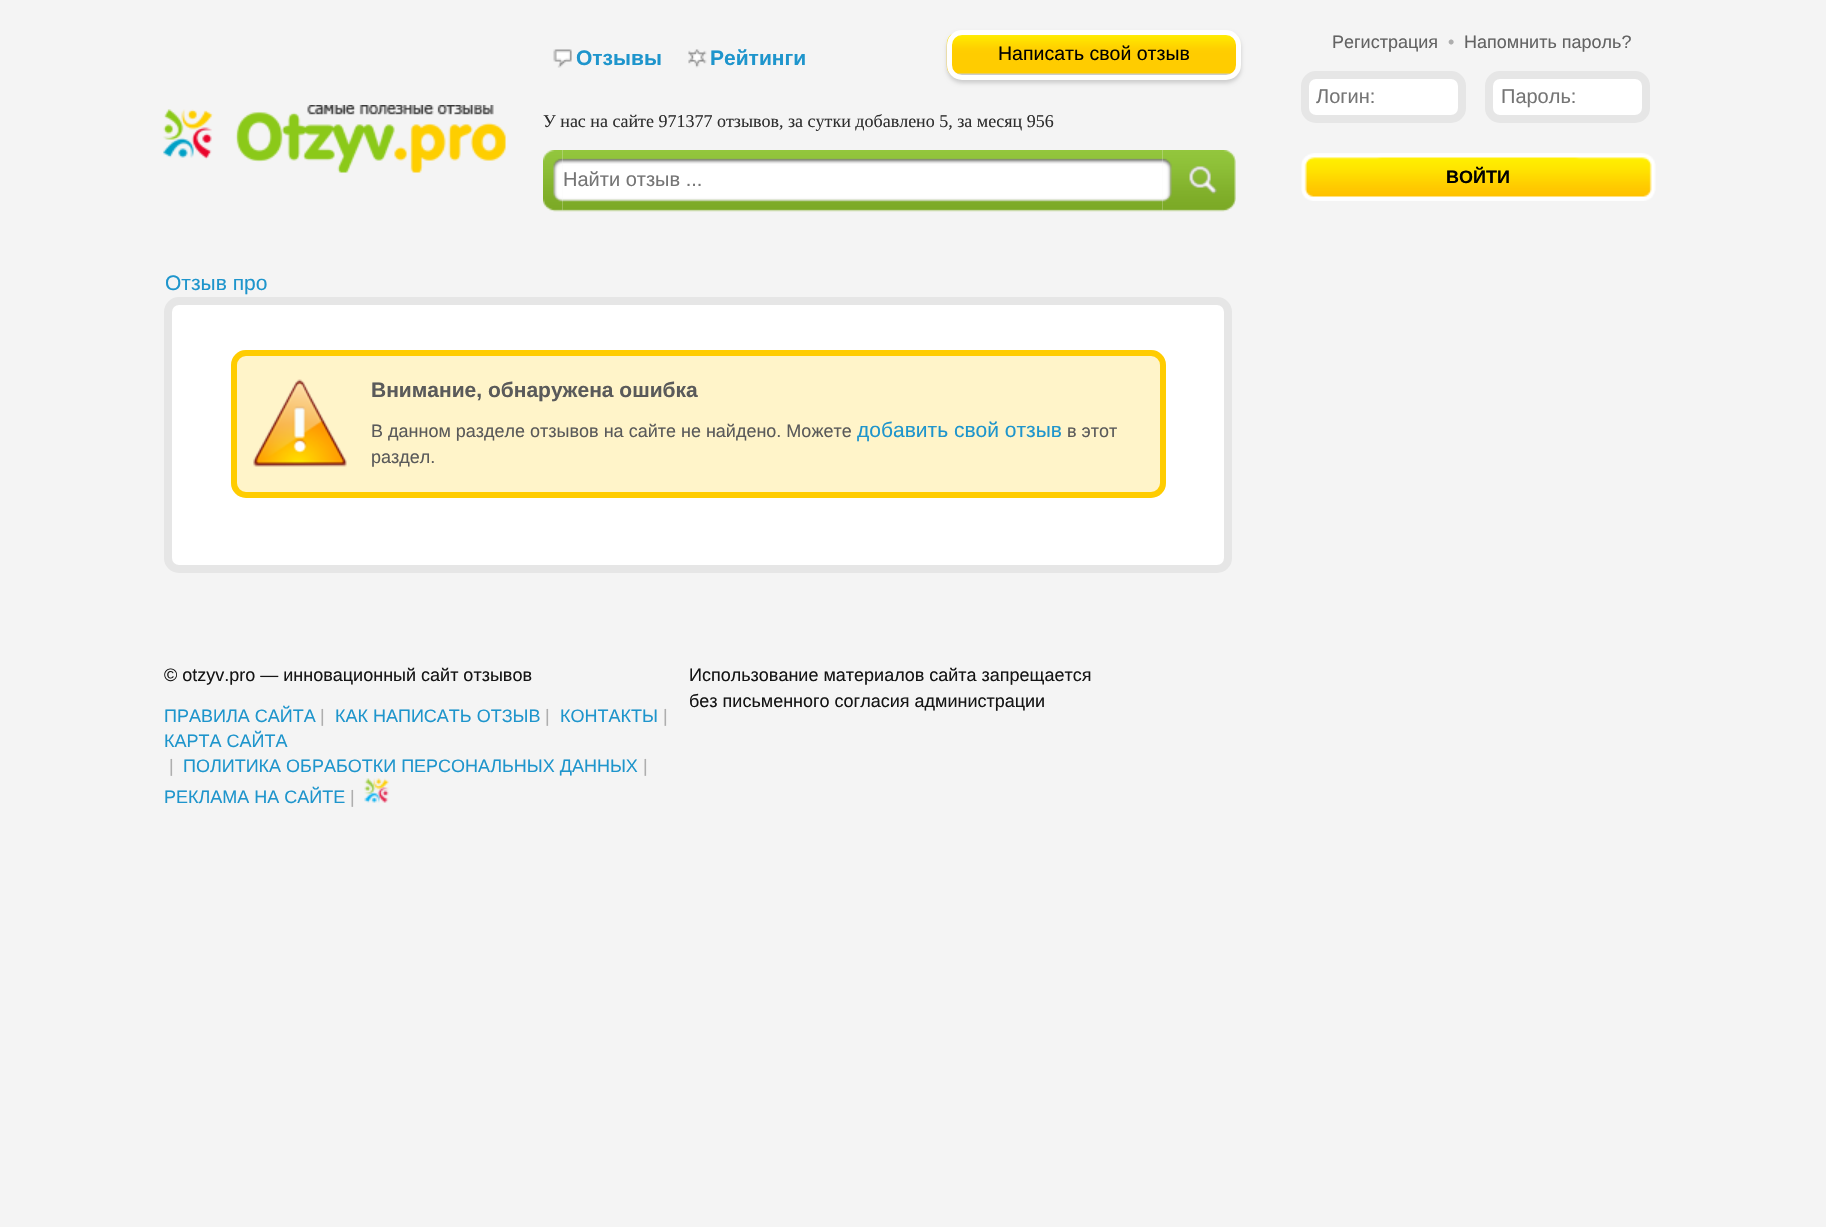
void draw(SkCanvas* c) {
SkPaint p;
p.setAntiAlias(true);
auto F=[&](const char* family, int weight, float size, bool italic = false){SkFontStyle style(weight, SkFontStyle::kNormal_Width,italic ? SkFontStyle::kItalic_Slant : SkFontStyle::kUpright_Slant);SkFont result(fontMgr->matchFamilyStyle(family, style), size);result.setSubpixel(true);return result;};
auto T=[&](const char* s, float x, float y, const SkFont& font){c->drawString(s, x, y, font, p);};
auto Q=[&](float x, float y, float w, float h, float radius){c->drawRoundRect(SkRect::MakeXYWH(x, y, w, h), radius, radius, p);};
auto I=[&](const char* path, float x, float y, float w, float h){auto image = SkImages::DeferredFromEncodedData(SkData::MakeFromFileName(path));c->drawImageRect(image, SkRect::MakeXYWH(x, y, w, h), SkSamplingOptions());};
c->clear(0xfff4f4f4);
I("1.png",163,105,343,68);
I("2.png",553,49,19,19);
auto f1 = F("Liberation Sans",700,21);
p.setColor(0xff1e95cc);
T("Отзывы",576,65,f1);
I("3.png",688,49,19,19);
T("Рейтинги",710,65,f1);
p.setColor(0xffcccccc);
p.setMaskFilter(SkMaskFilter::MakeBlur(kNormal_SkBlurStyle, 2));
c->drawRoundRect(SkRect::MakeXYWH(947,33,294,50),15,15,p);
p.setMaskFilter(nullptr);
I("4.png",946,34,295,40);
p.setStroke(true);
p.setStrokeWidth(5);
p.setColor(0xffffffff);
c->drawRoundRect(SkRect::MakeXYWH(949.5,32.5,289,45),12.5,12.5,p);
auto f2 = F("Liberation Sans",400,19.5);
p.setStroke(false);
p.setColor(0xff010101);
T("Написать свой отзыв",998,60,f2);
auto f3 = F("Liberation Serif",400,18);
p.setColor(0xff2f2f2f);
T("У нас на сайте 971377 отзывов, за сутки добавлено 5, за месяц 956",543,127,f3);
I("5.png",543,150,20,62);
I("6.png",562,150,601,62);
auto f4 = F("Liberation Sans",400,20);
p.setColor(0xff757575);
T("Найти отзыв ...",563,186,f4);
I("7.png",1162,150,74,62);
auto f5 = F("Liberation Sans",400,18);
p.setColor(0xff636363);
T("Регистрация",1332,48,f5);
p.setColor(0xffaeaeae);
T("•",1448,48,f5);
p.setColor(0xff636363);
T("Напомнить пароль?",1464,48,f5);
p.setColor(0xffffffff);
c->drawRoundRect(SkRect::MakeXYWH(1305,75,157,44),11,11,p);
p.setStroke(true);
p.setStrokeWidth(8);
p.setColor(0xffe6e6e6);
c->drawRoundRect(SkRect::MakeXYWH(1305,75,157,44),11,11,p);
p.setStroke(false);
p.setColor(0xff757575);
T("Логин:",1316,103,f4);
p.setColor(0xffffffff);
c->drawRoundRect(SkRect::MakeXYWH(1489,75,157,44),11,11,p);
p.setStroke(true);
p.setColor(0xffe6e6e6);
c->drawRoundRect(SkRect::MakeXYWH(1489,75,157,44),11,11,p);
p.setStroke(false);
p.setColor(0xff757575);
T("Пароль:",1501,103,f4);
I("8.png",1301,153,355,48);
auto f6 = F("Liberation Sans",700,18);
p.setColor(0xff010101);
T("ВОЙТИ",1446,183,f6);
auto f7 = F("Liberation Sans",400,21);
p.setColor(0xff1e95cc);
T("Отзыв про",165,290,f7);
p.setColor(0xffffffff);
c->drawRoundRect(SkRect::MakeXYWH(168,301,1060,268),11,11,p);
p.setStroke(true);
p.setColor(0xffe6e6e6);
c->drawRoundRect(SkRect::MakeXYWH(168,301,1060,268),11,11,p);
p.setStroke(false);
p.setColor(0xfffff4c9);
Q(231,350,935,148,15);
I("9.png",253,379,94,88);
p.setStroke(true);
p.setStrokeWidth(6);
p.setColor(0xffffcc00);
c->drawRoundRect(SkRect::MakeXYWH(234,353,929,142),12,12,p);
p.setStroke(false);
p.setColor(0xff5a5a5a);
T("Внимание, обнаружена ошибка",371,397,f1);
T("В данном разделе отзывов на сайте не найдено. Можете",371,437,f5);
p.setColor(0xff1e95cc);
T("добавить свой отзыв",857,437,f7);
p.setColor(0xff5a5a5a);
T("в этот",1067,437,f5);
T("раздел.",371,463,f5);
p.setColor(0xff151515);
T("© otzyv.pro — инновационный сайт отзывов",164,681,f5);
p.setColor(0xff1e95cc);
T("ПРАВИЛА САЙТА",164,722,f5);
p.setColor(0xffaeaeae);
T("|",320,722,f5);
p.setColor(0xff1e95cc);
T("КАК НАПИСАТЬ ОТЗЫВ",335,722,f5);
p.setColor(0xffaeaeae);
T("|",545,722,f5);
p.setColor(0xff1e95cc);
T("КОНТАКТЫ",560,722,f5);
p.setColor(0xffaeaeae);
T("|",663,722,f5);
p.setColor(0xff1e95cc);
T("КАРТА САЙТА",164,747,f5);
p.setColor(0xffaeaeae);
T("|",169,772,f5);
p.setColor(0xff1e95cc);
T("ПОЛИТИКА ОБРАБОТКИ ПЕРСОНАЛЬНЫХ ДАННЫХ",183,772,f5);
p.setColor(0xffaeaeae);
T("|",643,772,f5);
p.setColor(0xff1e95cc);
T("РЕКЛАМА НА САЙТЕ",164,803,f5);
p.setColor(0xffaeaeae);
T("|",350,803,f5);
I("10.png",364,778,25,25);
p.setColor(0xff151515);
T("Использование материалов сайта запрещается",689,681,f5);
T("без письменного согласия администрации",689,707,f5);
}
